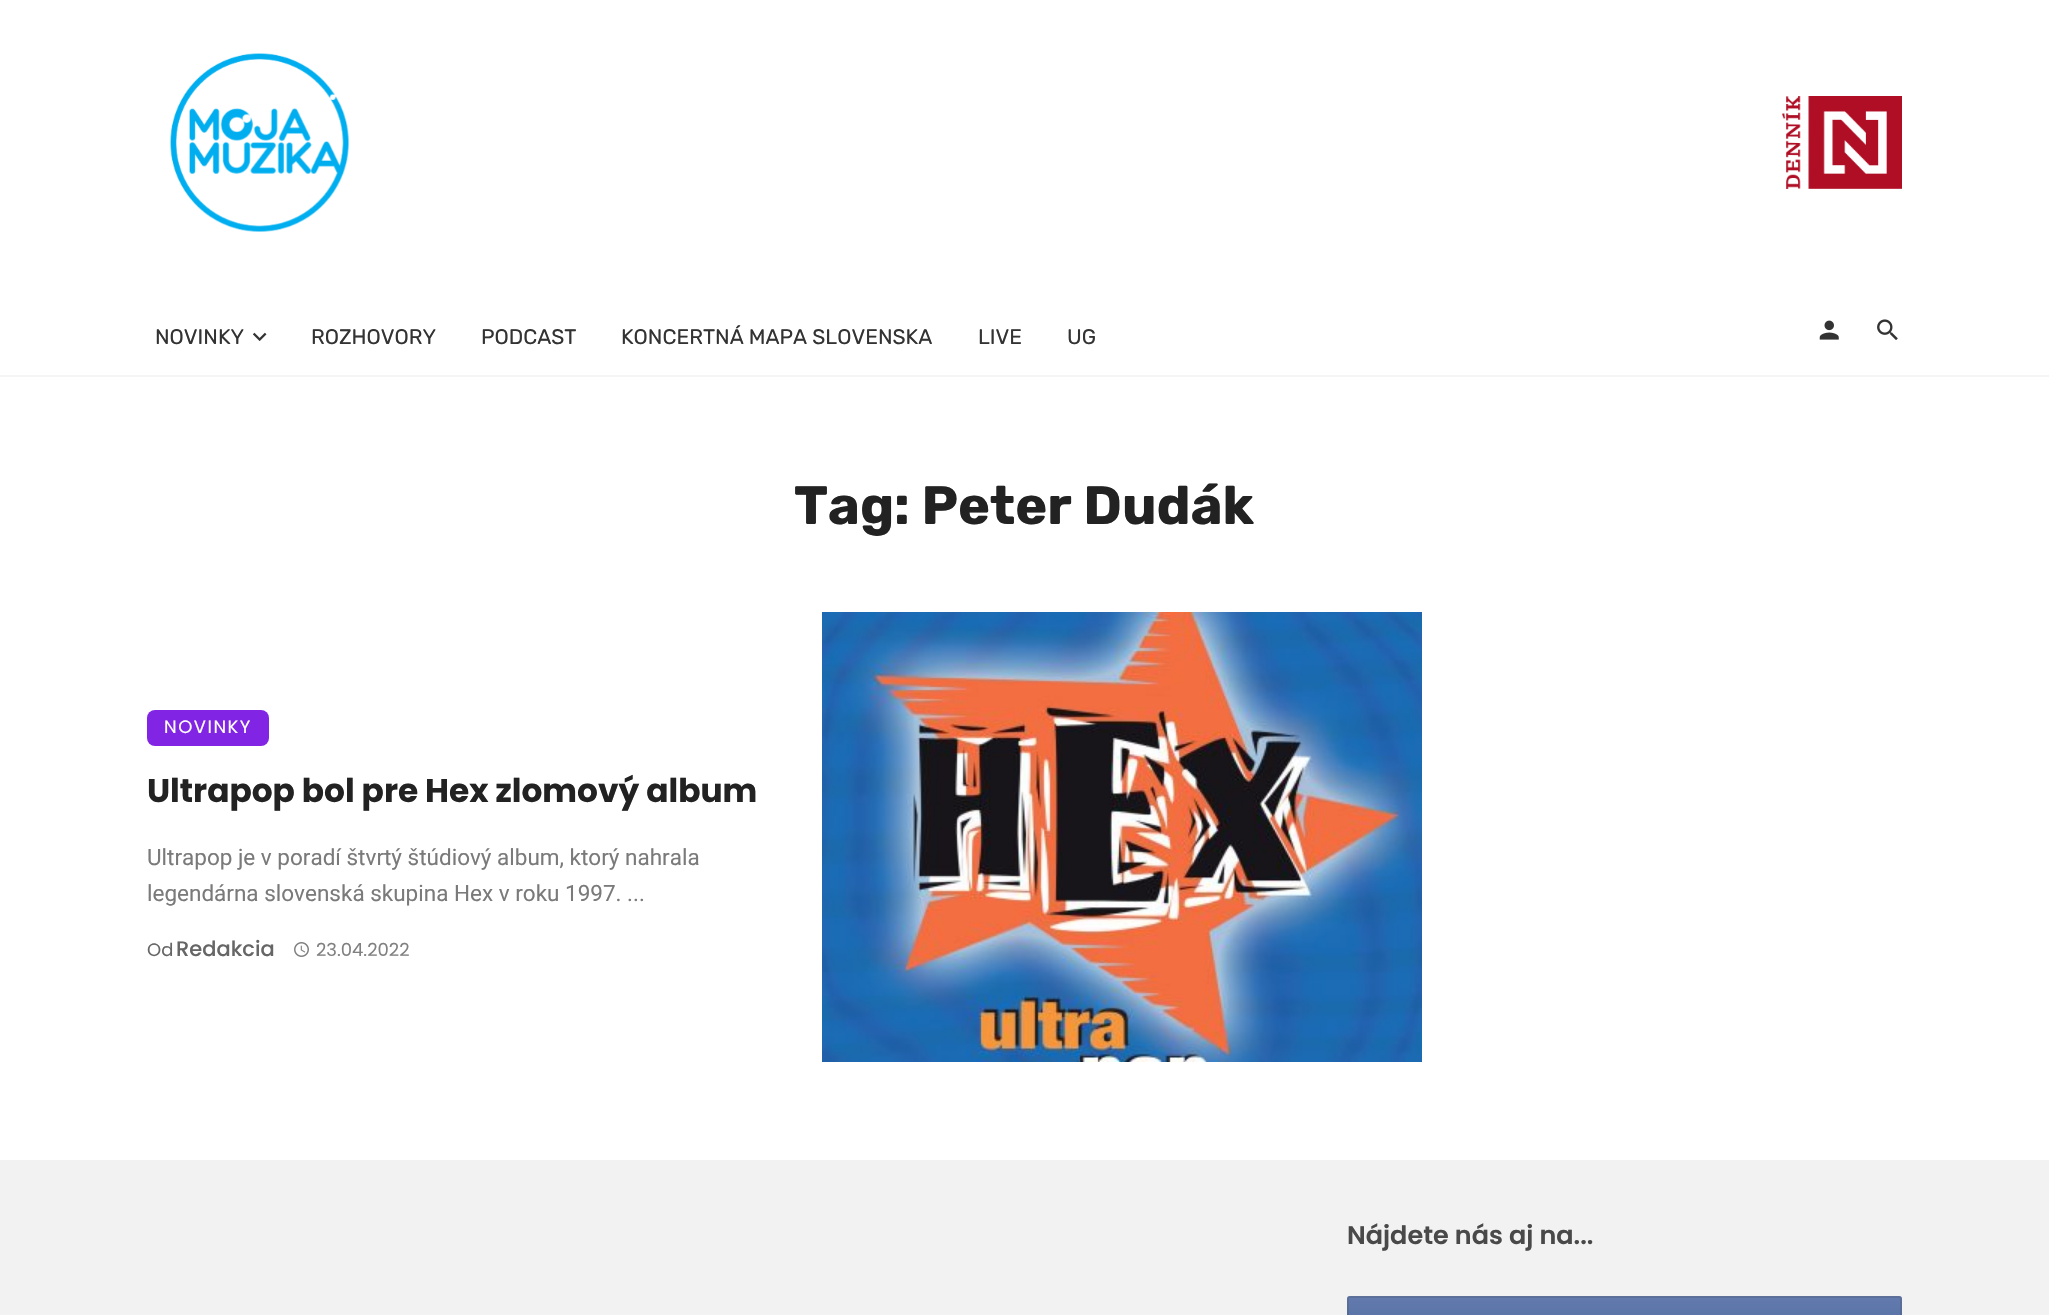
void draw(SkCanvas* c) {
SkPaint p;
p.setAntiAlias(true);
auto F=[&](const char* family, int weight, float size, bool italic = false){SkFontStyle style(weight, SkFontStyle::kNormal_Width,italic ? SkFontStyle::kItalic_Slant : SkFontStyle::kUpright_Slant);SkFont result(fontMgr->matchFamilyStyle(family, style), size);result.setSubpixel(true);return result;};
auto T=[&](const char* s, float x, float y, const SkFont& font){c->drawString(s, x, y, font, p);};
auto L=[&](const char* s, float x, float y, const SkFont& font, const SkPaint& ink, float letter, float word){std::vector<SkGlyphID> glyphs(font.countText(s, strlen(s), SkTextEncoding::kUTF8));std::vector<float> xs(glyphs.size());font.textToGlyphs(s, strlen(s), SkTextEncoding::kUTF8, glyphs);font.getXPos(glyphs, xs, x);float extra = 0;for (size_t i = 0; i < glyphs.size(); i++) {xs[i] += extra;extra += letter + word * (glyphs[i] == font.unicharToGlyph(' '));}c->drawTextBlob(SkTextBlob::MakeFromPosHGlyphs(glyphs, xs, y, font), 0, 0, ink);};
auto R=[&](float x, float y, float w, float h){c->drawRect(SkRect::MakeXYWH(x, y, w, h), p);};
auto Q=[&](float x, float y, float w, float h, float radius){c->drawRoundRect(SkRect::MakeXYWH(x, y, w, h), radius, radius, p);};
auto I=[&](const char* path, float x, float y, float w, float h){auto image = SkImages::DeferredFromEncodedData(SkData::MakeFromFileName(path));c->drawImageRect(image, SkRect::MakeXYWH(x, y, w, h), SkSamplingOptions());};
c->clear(0xffffffff);
p.setColor(0xfff5f5f5);
R(0,375,2049,2);
I("1.png",170,53,179,179);
I("2.png",1782,96,120,93);
auto f1 = F("Rubik",400,21);
p.setColor(0xff333333);
T("NOVINKY",155,344,f1);
I("3.png",252,332,15,9);
T("ROZHOVORY",311,344,f1);
T("PODCAST",481,344,f1);
T("KONCERTNÁ MAPA SLOVENSKA",621,344,f1);
T("LIVE",978,344,f1);
T("UG",1067,344,f1);
I("4.png",1819,320,20,20);
I("5.png",1877,319,21,21);
auto f2 = F("Rubik",700,54);
p.setColor(0xff222222);
T("Tag: Peter Dudák",794,524,f2);
p.setColor(0xff8224e3);
Q(147,710,122,36,8);
auto f3 = F("Poppins",400,18);
p.setColor(0xffffffff);
L("NOVINKY",164,733,f3,p,1.5,0);
auto f4 = F("Poppins",700,32.8);
p.setColor(0xff222222);
T("Ultrapop bol pre Hex zlomový album",147,802,f4);
auto f5 = F("Roboto",400,22.5);
p.setColor(0xff7a7a7a);
T("Ultrapop je v poradí štvrtý štúdiový album, ktorý nahrala",147,865,f5);
T("legendárna slovenská skupina Hex v roku 1997. ...",147,901,f5);
p.setColor(0xff666666);
T("Od",147,956,f3);
auto f6 = F("Poppins",500,21);
T("Redakcia",176,956,f6);
I("6.png",294,942,15,15);
p.setColor(0xff808080);
T("23.04.2022",316,956,f3);
I("7.png",822,612,600,450);
p.setColor(0xfff2f2f2);
R(0,1160,2049,155);
auto f7 = F("Poppins",600,25.5);
p.setColor(0xff494949);
T("Nájdete nás aj na...",1347,1244,f7);
p.setColor(0xff3b5998);
Q(1347,1296,555,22,3);
p.setStroke(true);
p.setStrokeWidth(2);
p.setColor(0x26000000);
c->drawRoundRect(SkRect::MakeXYWH(1348,1297,553,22),2,2,p);
p.setStroke(false);
{
const SkColor colors[] = {0x33ffffff,0x00ffffff};
const float stops[] = {0,1};
const SkPoint ends[] = {{1625,1296}, {1625,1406}};
p.setShader(SkGradientShader::MakeLinear(ends, colors, stops, 2, SkTileMode::kClamp));
p.setAlpha(255);
}
Q(1347,1296,555,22,3);
}
